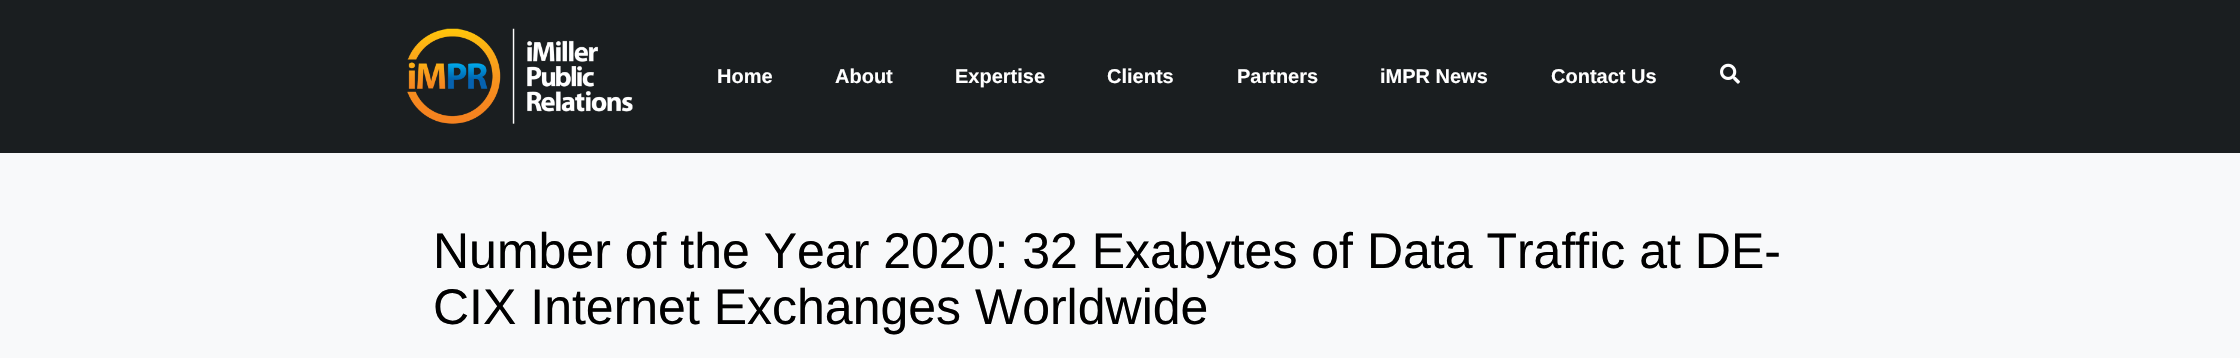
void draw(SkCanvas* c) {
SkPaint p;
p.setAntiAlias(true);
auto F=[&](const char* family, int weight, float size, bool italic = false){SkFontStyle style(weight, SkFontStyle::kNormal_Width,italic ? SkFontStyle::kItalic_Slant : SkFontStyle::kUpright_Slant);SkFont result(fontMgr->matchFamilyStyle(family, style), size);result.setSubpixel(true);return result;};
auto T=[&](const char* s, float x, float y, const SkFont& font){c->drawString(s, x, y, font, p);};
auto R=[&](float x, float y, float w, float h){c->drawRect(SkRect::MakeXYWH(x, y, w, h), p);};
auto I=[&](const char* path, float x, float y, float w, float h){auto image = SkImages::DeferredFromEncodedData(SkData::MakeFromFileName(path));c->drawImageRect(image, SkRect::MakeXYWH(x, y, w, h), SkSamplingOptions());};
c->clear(0xfff8f9fa);
p.setColor(0xff1a1e20);
R(0,0,2240,153);
I("1.png",407,28,226,96);
auto f1 = F("Liberation Sans",700,20);
p.setColor(0xffffffff);
T("Home",717,83,f1);
T("About",835,83,f1);
T("Expertise",955,83,f1);
T("Clients",1107,83,f1);
T("Partners",1237,83,f1);
T("iMPR News",1380,83,f1);
T("Contact Us",1551,83,f1);
I("2.png",1720,63,20,21);
auto f2 = F("Liberation Sans",400,50);
p.setColor(0xff000000);
T("Number of the Year 2020: 32 Exabytes of Data Traffic at DE-",433,268,f2);
T("CIX Internet Exchanges Worldwide",433,324,f2);
}
